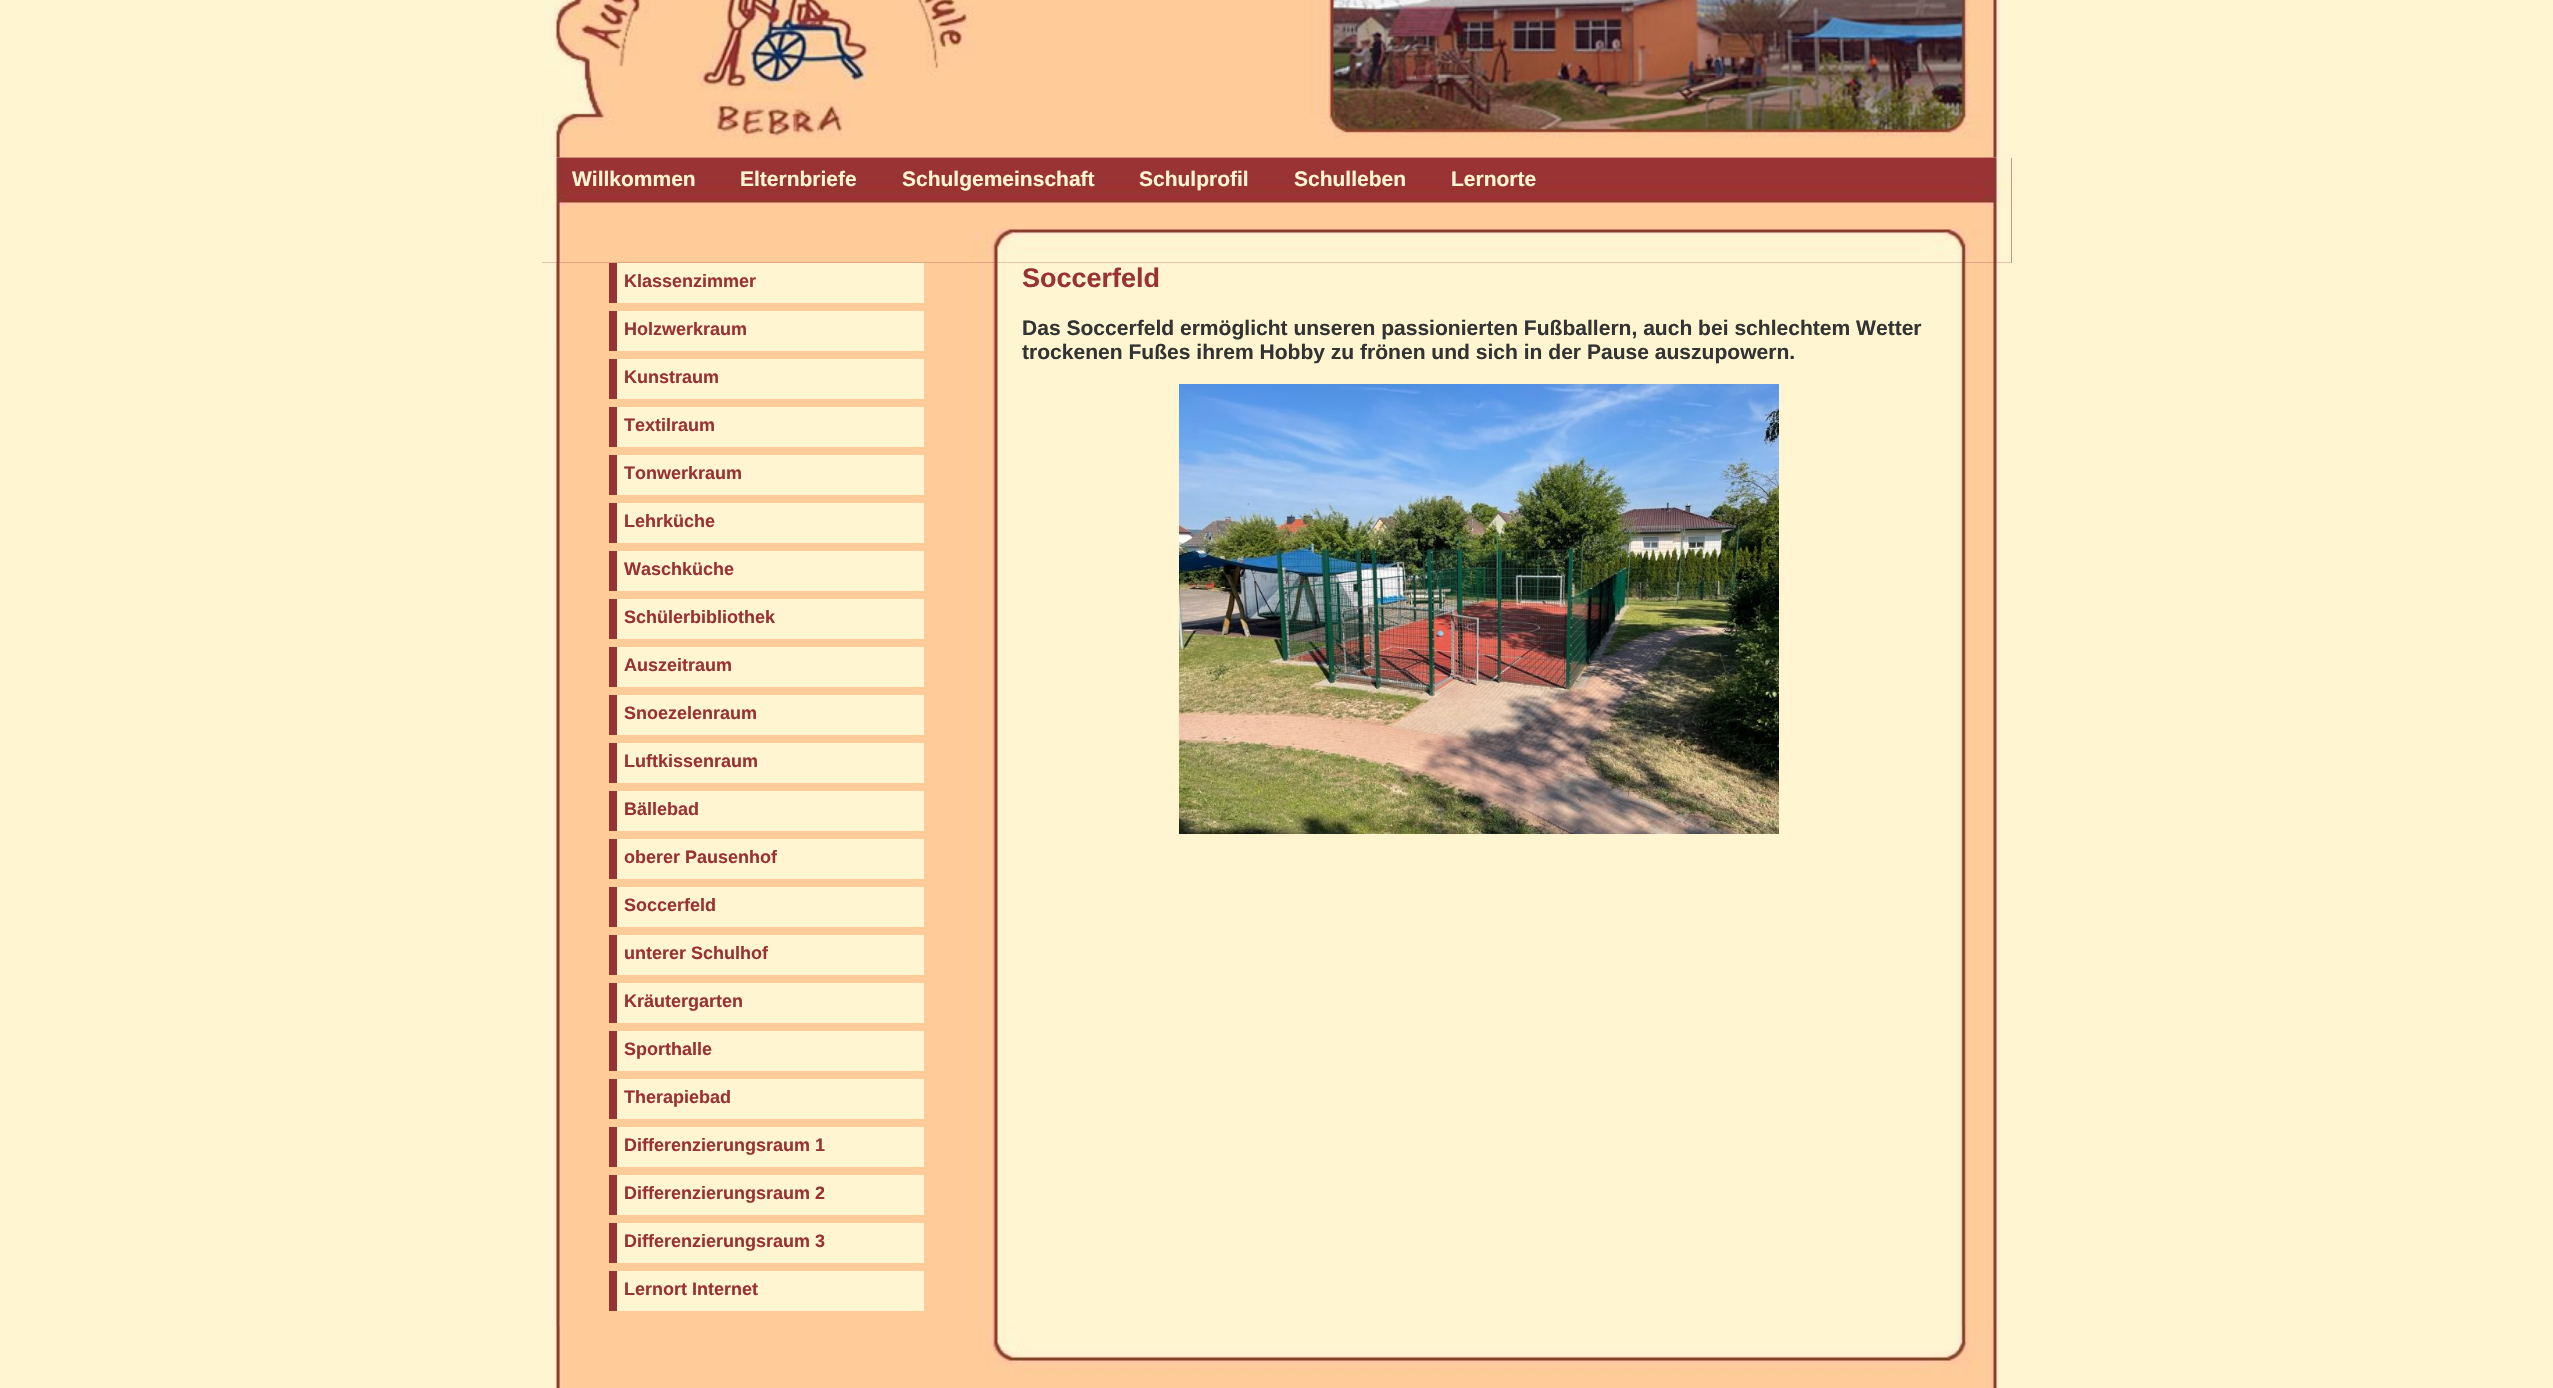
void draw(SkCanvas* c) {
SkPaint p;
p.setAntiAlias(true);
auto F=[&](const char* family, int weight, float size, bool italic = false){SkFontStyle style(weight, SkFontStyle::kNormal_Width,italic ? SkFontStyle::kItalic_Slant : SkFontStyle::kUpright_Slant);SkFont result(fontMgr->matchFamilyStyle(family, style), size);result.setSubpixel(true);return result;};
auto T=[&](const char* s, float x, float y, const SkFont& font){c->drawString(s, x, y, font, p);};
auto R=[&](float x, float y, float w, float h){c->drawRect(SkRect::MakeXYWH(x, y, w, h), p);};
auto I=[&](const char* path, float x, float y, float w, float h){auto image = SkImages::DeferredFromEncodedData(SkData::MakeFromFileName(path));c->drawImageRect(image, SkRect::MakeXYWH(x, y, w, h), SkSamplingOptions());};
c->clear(0xfffff6d1);
I("1.png",542,0,1462,158);
p.setColor(0xff993333);
R(542,158,1470,105);
I("2.png",542,157,1470,106);
auto f1 = F("Liberation Sans",700,21);
p.setColor(0xfffff6d1);
T("Willkommen",572,186,f1);
T("Elternbriefe",740,186,f1);
T("Schulgemeinschaft",902,186,f1);
T("Schulprofil",1139,186,f1);
T("Schulleben",1294,186,f1);
T("Lernorte",1451,186,f1);
I("3.png",542,262,1470,1064);
R(617,263,307,40);
p.setColor(0xff993333);
R(609,263,8,40);
auto f2 = F("Liberation Sans",700,18);
T("Klassenzimmer",624,287,f2);
p.setColor(0xfffff6d1);
R(617,311,307,40);
p.setColor(0xff993333);
R(609,311,8,40);
T("Holzwerkraum",624,335,f2);
p.setColor(0xfffff6d1);
R(617,359,307,40);
p.setColor(0xff993333);
R(609,359,8,40);
T("Kunstraum",624,383,f2);
p.setColor(0xfffff6d1);
R(617,407,307,40);
p.setColor(0xff993333);
R(609,407,8,40);
T("Textilraum",624,431,f2);
p.setColor(0xfffff6d1);
R(617,455,307,40);
p.setColor(0xff993333);
R(609,455,8,40);
T("Tonwerkraum",624,479,f2);
p.setColor(0xfffff6d1);
R(617,503,307,40);
p.setColor(0xff993333);
R(609,503,8,40);
T("Lehrküche",624,527,f2);
p.setColor(0xfffff6d1);
R(617,551,307,40);
p.setColor(0xff993333);
R(609,551,8,40);
T("Waschküche",624,575,f2);
p.setColor(0xfffff6d1);
R(617,599,307,40);
p.setColor(0xff993333);
R(609,599,8,40);
T("Schülerbibliothek",624,623,f2);
p.setColor(0xfffff6d1);
R(617,647,307,40);
p.setColor(0xff993333);
R(609,647,8,40);
T("Auszeitraum",624,671,f2);
p.setColor(0xfffff6d1);
R(617,695,307,40);
p.setColor(0xff993333);
R(609,695,8,40);
T("Snoezelenraum",624,719,f2);
p.setColor(0xfffff6d1);
R(617,743,307,40);
p.setColor(0xff993333);
R(609,743,8,40);
T("Luftkissenraum",624,767,f2);
p.setColor(0xfffff6d1);
R(617,791,307,40);
p.setColor(0xff993333);
R(609,791,8,40);
T("Bällebad",624,815,f2);
p.setColor(0xfffff6d1);
R(617,839,307,40);
p.setColor(0xff993333);
R(609,839,8,40);
T("oberer Pausenhof",624,863,f2);
p.setColor(0xfffff6d1);
R(617,887,307,40);
p.setColor(0xff993333);
R(609,887,8,40);
T("Soccerfeld",624,911,f2);
p.setColor(0xfffff6d1);
R(617,935,307,40);
p.setColor(0xff993333);
R(609,935,8,40);
T("unterer Schulhof",624,959,f2);
p.setColor(0xfffff6d1);
R(617,983,307,40);
p.setColor(0xff993333);
R(609,983,8,40);
T("Kräutergarten",624,1007,f2);
p.setColor(0xfffff6d1);
R(617,1031,307,40);
p.setColor(0xff993333);
R(609,1031,8,40);
T("Sporthalle",624,1055,f2);
p.setColor(0xfffff6d1);
R(617,1079,307,40);
p.setColor(0xff993333);
R(609,1079,8,40);
T("Therapiebad",624,1103,f2);
p.setColor(0xfffff6d1);
R(617,1127,307,40);
p.setColor(0xff993333);
R(609,1127,8,40);
T("Differenzierungsraum 1",624,1151,f2);
p.setColor(0xfffff6d1);
R(617,1175,307,40);
p.setColor(0xff993333);
R(609,1175,8,40);
T("Differenzierungsraum 2",624,1199,f2);
p.setColor(0xfffff6d1);
R(617,1223,307,40);
p.setColor(0xff993333);
R(609,1223,8,40);
T("Differenzierungsraum 3",624,1247,f2);
p.setColor(0xfffff6d1);
R(617,1271,307,40);
p.setColor(0xff993333);
R(609,1271,8,40);
T("Lernort Internet",624,1295,f2);
auto f3 = F("Liberation Sans",700,27);
T("Soccerfeld",1022,287,f3);
auto f4 = F("Liberation Sans",700,21.05);
p.setColor(0xff333333);
T("Das Soccerfeld ermöglicht unseren passionierten Fußballern, auch bei schlechtem Wetter",1022,335,f4);
T("trockenen Fußes ihrem Hobby zu frönen und sich in der Pause auszupowern.",1022,359,f4);
I("4.png",1179,384,600,450);
I("5.png",555,1326,1444,62);
}
